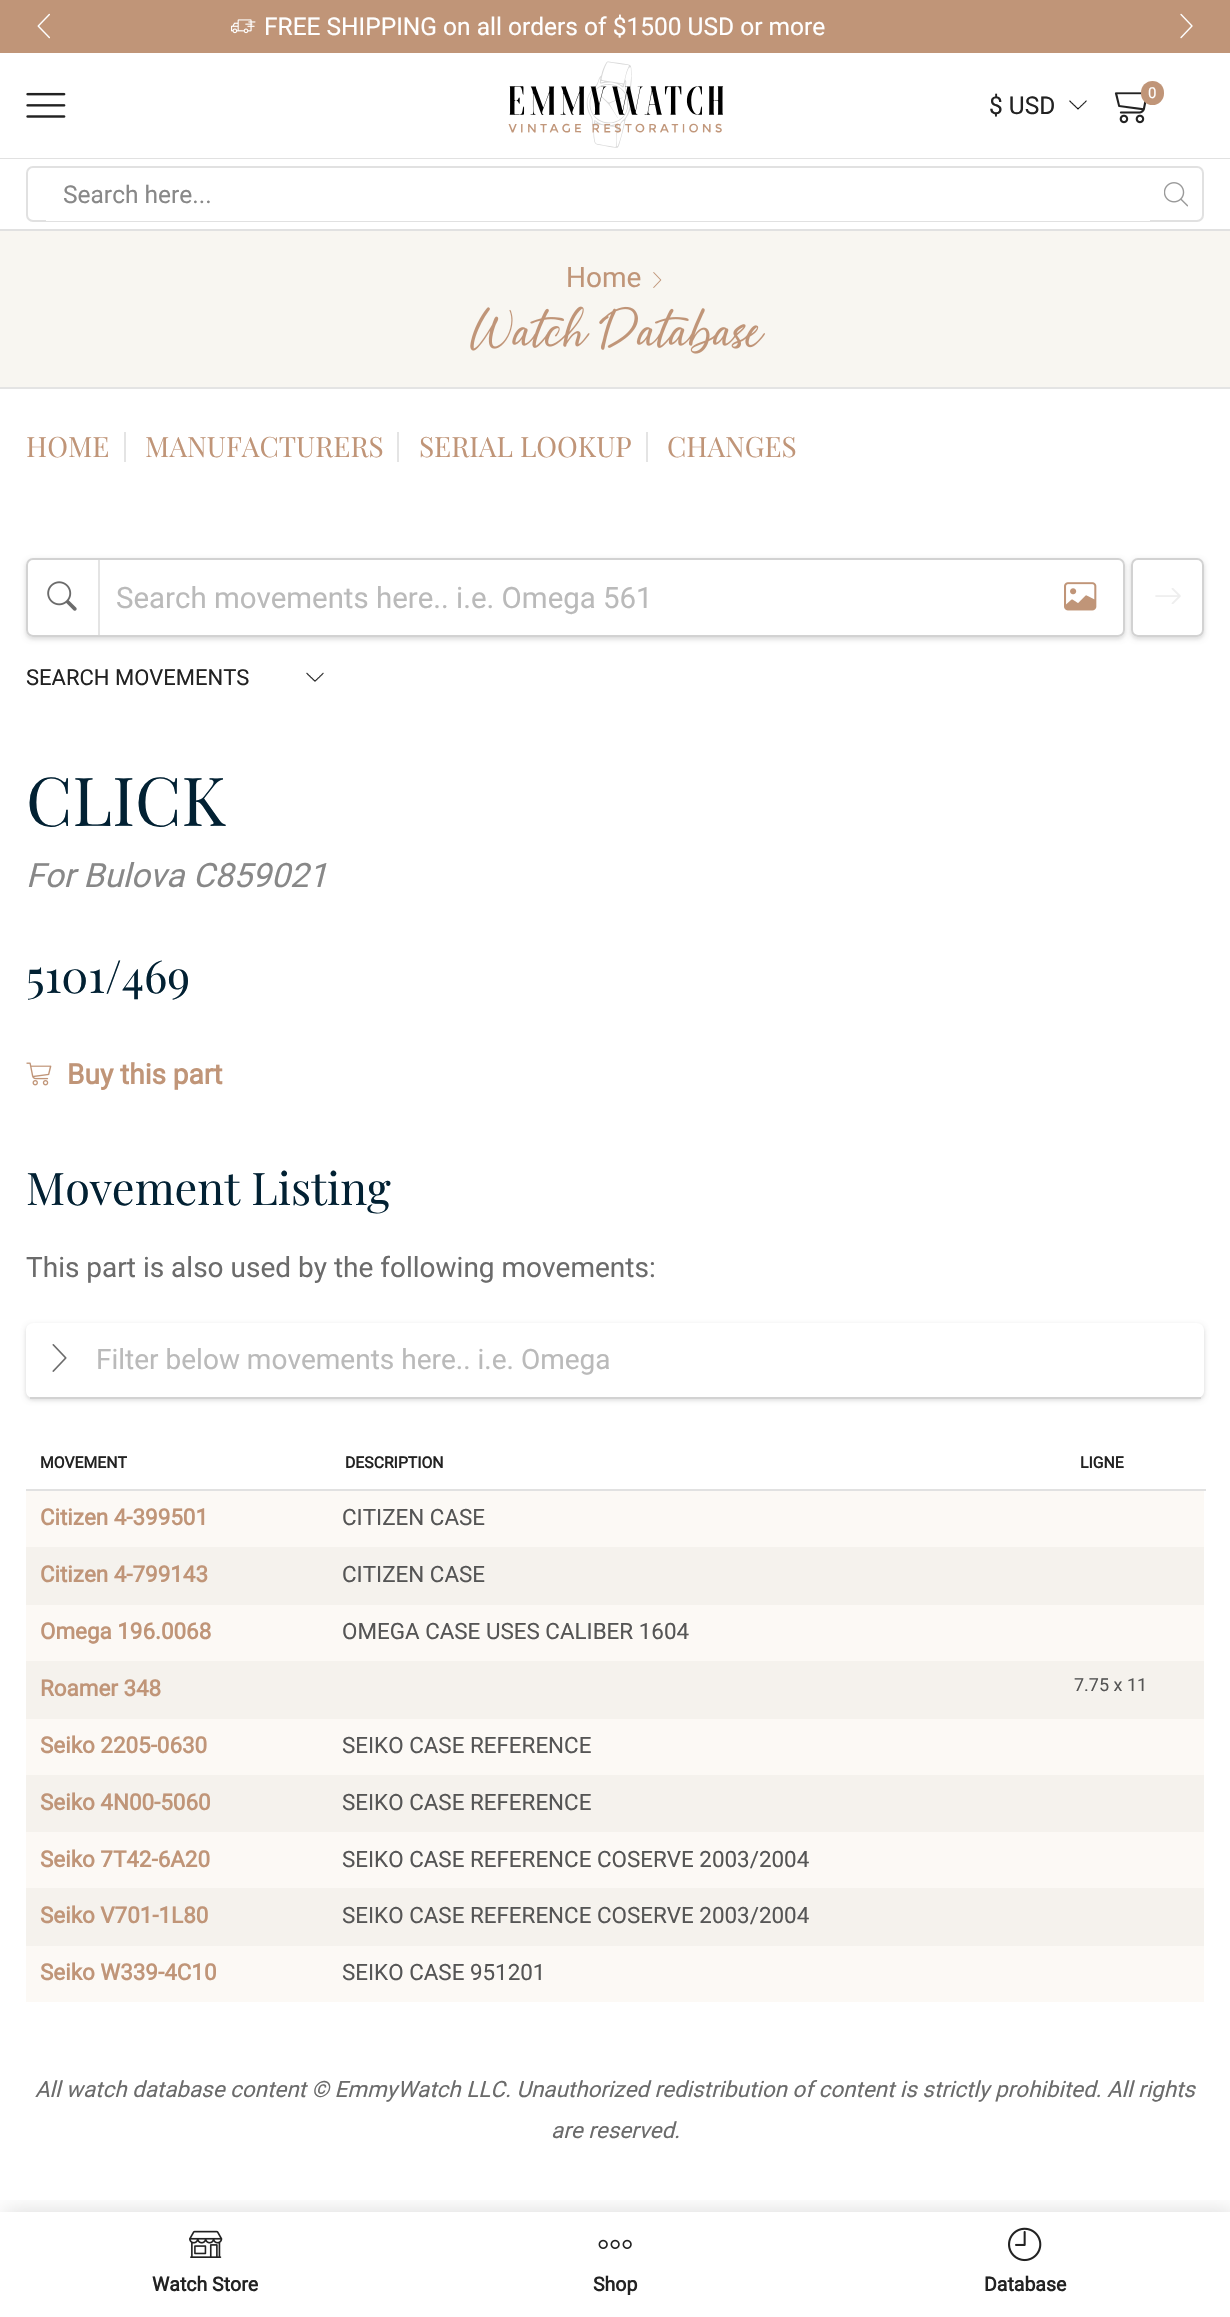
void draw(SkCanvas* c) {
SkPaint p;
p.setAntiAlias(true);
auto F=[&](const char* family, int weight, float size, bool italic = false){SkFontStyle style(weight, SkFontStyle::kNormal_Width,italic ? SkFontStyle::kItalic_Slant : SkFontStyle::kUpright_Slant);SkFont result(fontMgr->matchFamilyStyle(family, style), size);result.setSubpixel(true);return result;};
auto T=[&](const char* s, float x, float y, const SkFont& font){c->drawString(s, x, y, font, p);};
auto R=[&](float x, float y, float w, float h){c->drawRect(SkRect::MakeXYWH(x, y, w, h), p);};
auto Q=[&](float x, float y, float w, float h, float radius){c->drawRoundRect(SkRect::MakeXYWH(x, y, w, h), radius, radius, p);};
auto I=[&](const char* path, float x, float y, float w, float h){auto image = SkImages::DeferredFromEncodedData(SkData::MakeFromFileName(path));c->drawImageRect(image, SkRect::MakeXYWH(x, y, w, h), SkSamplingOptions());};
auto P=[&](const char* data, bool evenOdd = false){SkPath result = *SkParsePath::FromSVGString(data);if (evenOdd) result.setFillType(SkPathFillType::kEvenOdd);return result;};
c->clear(0xffffffff);
p.setColor(0xffc09578);
R(0,0,1230,53);
I("1.png",37,13,13,26);
I("2.png",231,19,25,15);
auto f1 = F("Roboto",400,24.5);
p.setColor(0xffffffff);
T("FREE SHIPPING on all orders of $1500 USD or more",264,35,f1);
I("3.png",1180,13,13,26);
p.setColor(0xffe1e1e1);
R(0,158,1230,1);
I("4.png",26,92,40,26);
I("5.png",508,61,216,87);
I("6.png",1069,100,18,10);
p.setColor(0xff222222);
T("$ USD",989,114,f1);
I("7.png",1114,92,33,32);
p.setColor(0xffc09578);
Q(1141,81,23,24,11.5);
auto f2 = F("Roboto",400,15);
p.setColor(0xffffffff);
T("0",1148,98,f2);
p.setColor(0xffe1e1e1);
R(0,229,1230,2);
p.setStroke(true);
p.setStrokeWidth(2);
c->drawRoundRect(SkRect::MakeXYWH(27,167,1176,54),6,6,p);
p.setStroke(false);
p.setColor(0xffffffff);
R(46,220,1104,1);
p.setColor(0xff888888);
T("Search here...",63,203,f1);
I("8.png",1164,182,24,25);
p.setColor(0xfff8f6f1);
R(0,231,1230,156);
p.setColor(0xffe4e4e4);
R(0,387,1230,2);
auto f3 = F("Roboto",400,28);
p.setColor(0xffc09578);
T("Home",566,287,f3);
I("9.png",653,272,9,16);
I("10.png",470,306,295,48);
p.setColor(0xffe4e4e4);
R(124,432,2,30);
auto f4 = F("Playfair Display",400,28);
p.setColor(0xffc09578);
T("HOME",26,457,f4);
p.setColor(0xffe4e4e4);
R(397,432,2,30);
p.setColor(0xffc09578);
T("MANUFACTURERS",145,457,f4);
p.setColor(0xffe4e4e4);
R(646,432,2,30);
p.setColor(0xffc09578);
T("SERIAL LOOKUP",419,457,f4);
T("CHANGES",667,457,f4);
c->save();
c->clipPath(P("M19 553h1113v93h-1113zm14 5h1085c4 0 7 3 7 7v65c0 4-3 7-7 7h-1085c-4 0-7-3-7-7v-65c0-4 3-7 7-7z",true),true);
p.setColor(0x0f000000);
p.setMaskFilter(SkMaskFilter::MakeBlur(kNormal_SkBlurStyle, 2));
c->drawRoundRect(SkRect::MakeXYWH(26,560,1099,79),7,7,p);
p.setMaskFilter(nullptr);
c->restore();
c->save();
c->clipPath(P("M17 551h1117v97h-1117zm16 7h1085c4 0 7 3 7 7v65c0 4-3 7-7 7h-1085c-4 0-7-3-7-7v-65c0-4 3-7 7-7z",true),true);
p.setColor(0x1a000000);
p.setMaskFilter(SkMaskFilter::MakeBlur(kNormal_SkBlurStyle, 2.5));
c->drawRoundRect(SkRect::MakeXYWH(26,560,1099,79),7,7,p);
p.setMaskFilter(nullptr);
c->restore();
p.setStroke(true);
p.setColor(0xffd2d2d2);
c->drawRoundRect(SkRect::MakeXYWH(27,559,1097,77),6,6,p);
p.setStroke(false);
p.setColor(0xffe4e4e4);
R(98,560,2,75);
I("11.png",47,581,30,30);
auto f5 = F("Roboto",400,29.4);
p.setColor(0xffbababa);
T("Search movements here.. i.e. Omega 561",116,608,f5);
I("12.png",1064,582,33,29);
c->save();
c->clipPath(P("M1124 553h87v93h-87zm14 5h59c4 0 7 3 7 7v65c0 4-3 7-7 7h-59c-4 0-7-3-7-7v-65c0-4 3-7 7-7z",true),true);
p.setColor(0x0f000000);
p.setMaskFilter(SkMaskFilter::MakeBlur(kNormal_SkBlurStyle, 2));
c->drawRoundRect(SkRect::MakeXYWH(1131,560,73,79),7,7,p);
p.setMaskFilter(nullptr);
c->restore();
c->save();
c->clipPath(P("M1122 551h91v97h-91zm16 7h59c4 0 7 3 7 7v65c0 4-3 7-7 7h-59c-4 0-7-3-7-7v-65c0-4 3-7 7-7z",true),true);
p.setColor(0x1a000000);
p.setMaskFilter(SkMaskFilter::MakeBlur(kNormal_SkBlurStyle, 2.5));
c->drawRoundRect(SkRect::MakeXYWH(1131,560,73,79),7,7,p);
p.setMaskFilter(nullptr);
c->restore();
p.setStroke(true);
p.setColor(0xffd2d2d2);
c->drawRoundRect(SkRect::MakeXYWH(1132,559,71,77),6,6,p);
I("13.png",1155,588,26,16);
I("14.png",306,672,18,10);
auto f6 = F("Roboto",400,22);
p.setStroke(false);
p.setColor(0xff222222);
T("SEARCH MOVEMENTS",26,685,f6);
auto f7 = F("Playfair Display",400,67.5);
p.setColor(0xff022133);
T("CLICK",26,826,f7);
auto f8 = F("Roboto",400,33.5,true);
p.setColor(0xff888888);
T("For Bulova C859021",26,887,f8);
auto f9 = F("Playfair Display",400,45);
p.setColor(0xff022133);
T("5101/469",26,993,f9);
I("15.png",26,1062,26,24);
auto f10 = F("Roboto",700,28);
p.setColor(0xffc09578);
T("Buy this part",67,1084,f10);
p.setColor(0xff022133);
T("Movement Listing",26,1205,f9);
p.setColor(0xff6b6b6b);
T("This part is also used by the following movements:",26,1277,f3);
c->save();
c->clipPath(P("M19 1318h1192v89h-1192zm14 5h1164c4 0 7 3 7 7v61c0 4-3 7-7 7h-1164c-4 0-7-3-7-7v-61c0-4 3-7 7-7z",true),true);
p.setColor(0x0f000000);
p.setMaskFilter(SkMaskFilter::MakeBlur(kNormal_SkBlurStyle, 2));
c->drawRoundRect(SkRect::MakeXYWH(26,1325,1178,75),7,7,p);
p.setMaskFilter(nullptr);
c->restore();
c->save();
c->clipPath(P("M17 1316h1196v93h-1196zm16 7h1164c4 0 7 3 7 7v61c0 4-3 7-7 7h-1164c-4 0-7-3-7-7v-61c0-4 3-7 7-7z",true),true);
p.setColor(0x1a000000);
p.setMaskFilter(SkMaskFilter::MakeBlur(kNormal_SkBlurStyle, 2.5));
c->drawRoundRect(SkRect::MakeXYWH(26,1325,1178,75),7,7,p);
p.setMaskFilter(nullptr);
c->restore();
I("16.png",52,1344,15,28);
p.setColor(0xffd2d2d2);
R(30,1397,1171,2);
p.setColor(0xffbababa);
T("Filter below movements here.. i.e. Omega",96,1369,f3);
p.setColor(0xffe1e1e1);
R(26,1489,1180,2);
auto f11 = F("Roboto",700,15.75);
p.setColor(0xff222222);
T("MOVEMENT",40,1468,f11);
T("DESCRIPTION",345,1468,f11);
T("LIGNE",1080,1468,f11);
p.setColor(0xfffcf9f5);
R(26,1491,1178,56);
auto f12 = F("Roboto",700,22.4);
p.setColor(0xffc09578);
T("Citizen 4-399501",40,1525,f12);
auto f13 = F("Roboto",400,22.4);
p.setColor(0xff555555);
T("CITIZEN CASE",342,1525,f13);
p.setColor(0xfff5f2ed);
R(26,1547,1178,58);
p.setColor(0xffc09578);
T("Citizen 4-799143",40,1582,f12);
p.setColor(0xff555555);
T("CITIZEN CASE",342,1582,f13);
p.setColor(0xfffcf9f5);
R(26,1605,1178,56);
p.setColor(0xffc09578);
T("Omega 196.0068",40,1639,f12);
p.setColor(0xff555555);
T("OMEGA CASE USES CALIBER 1604",342,1639,f13);
p.setColor(0xfff5f2ed);
R(26,1661,1178,58);
p.setColor(0xffc09578);
T("Roamer 348",40,1696,f12);
auto f14 = F("Roboto",400,18);
p.setColor(0xff555555);
T("7.75 x 11",1074,1691,f14);
p.setColor(0xfffcf9f5);
R(26,1719,1178,56);
p.setColor(0xffc09578);
T("Seiko 2205-0630",40,1753,f12);
p.setColor(0xff555555);
T("SEIKO CASE REFERENCE",342,1753,f13);
p.setColor(0xfff5f2ed);
R(26,1775,1178,57);
p.setColor(0xffc09578);
T("Seiko 4N00-5060",40,1810,f12);
p.setColor(0xff555555);
T("SEIKO CASE REFERENCE",342,1810,f13);
p.setColor(0xfffcf9f5);
R(26,1832,1178,56);
p.setColor(0xffc09578);
T("Seiko 7T42-6A20",40,1867,f12);
p.setColor(0xff555555);
T("SEIKO CASE REFERENCE COSERVE 2003/2004",342,1867,f13);
p.setColor(0xfff5f2ed);
R(26,1888,1178,58);
p.setColor(0xffc09578);
T("Seiko V701-1L80",40,1923,f12);
p.setColor(0xff555555);
T("SEIKO CASE REFERENCE COSERVE 2003/2004",342,1923,f13);
p.setColor(0xfffcf9f5);
R(26,1946,1178,56);
p.setColor(0xffc09578);
T("Seiko W339-4C10",40,1980,f12);
p.setColor(0xff555555);
T("SEIKO CASE 951201",342,1980,f13);
auto f15 = F("Roboto",400,22.4,true);
p.setColor(0xff6b6b6b);
T("All watch database content © EmmyWatch LLC. Unauthorized redistribution of content is strictly prohibited. All rights",35,2097,f15);
T("are reserved.",551,2138,f15);
c->save();
c->clipRect(SkRect::MakeXYWH(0,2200,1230,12));
p.setColor(0x26000000);
p.setMaskFilter(SkMaskFilter::MakeBlur(kNormal_SkBlurStyle, 10.5));
c->drawRect(SkRect::MakeXYWH(4,2212,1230,105),p);
p.setMaskFilter(nullptr);
c->restore();
I("17.png",189,2230,34,28);
auto f16 = F("Roboto",700,19.5);
p.setColor(0xff222222);
T("Watch Store",152,2291,f16);
I("18.png",598,2239,34,10);
T("Shop",593,2291,f16);
I("19.png",1008,2227,34,35);
T("Database",984,2291,f16);
}
